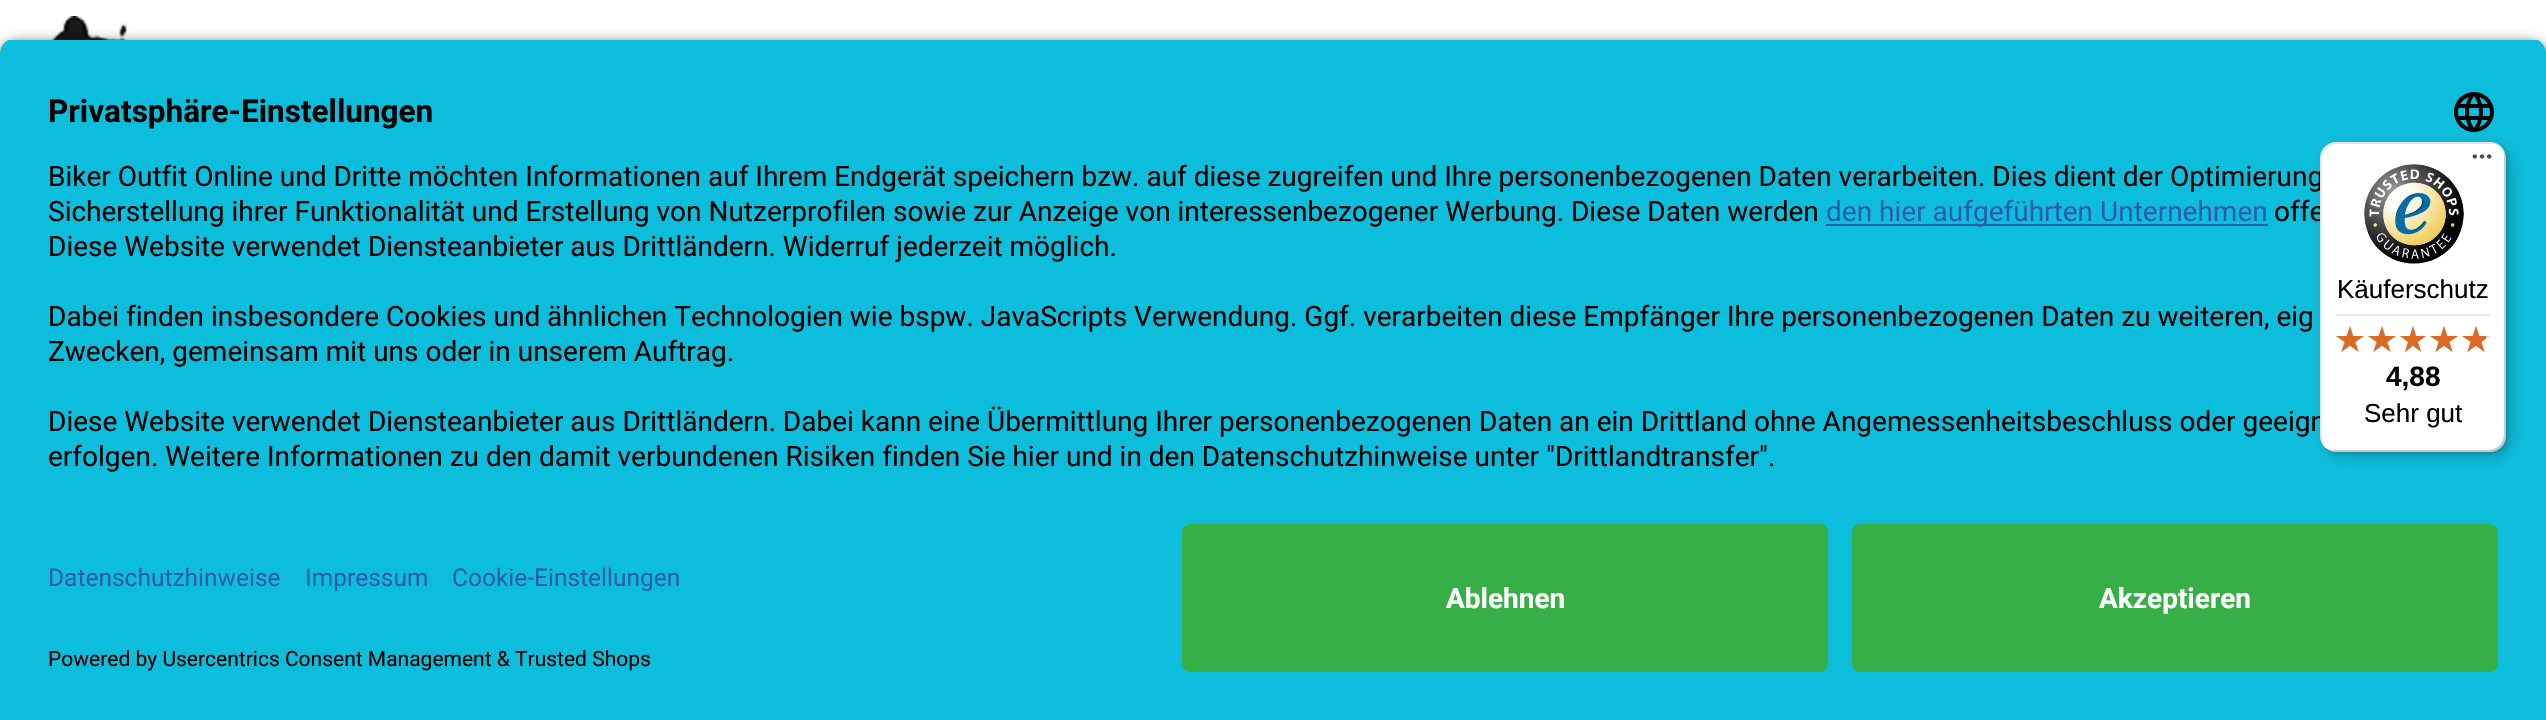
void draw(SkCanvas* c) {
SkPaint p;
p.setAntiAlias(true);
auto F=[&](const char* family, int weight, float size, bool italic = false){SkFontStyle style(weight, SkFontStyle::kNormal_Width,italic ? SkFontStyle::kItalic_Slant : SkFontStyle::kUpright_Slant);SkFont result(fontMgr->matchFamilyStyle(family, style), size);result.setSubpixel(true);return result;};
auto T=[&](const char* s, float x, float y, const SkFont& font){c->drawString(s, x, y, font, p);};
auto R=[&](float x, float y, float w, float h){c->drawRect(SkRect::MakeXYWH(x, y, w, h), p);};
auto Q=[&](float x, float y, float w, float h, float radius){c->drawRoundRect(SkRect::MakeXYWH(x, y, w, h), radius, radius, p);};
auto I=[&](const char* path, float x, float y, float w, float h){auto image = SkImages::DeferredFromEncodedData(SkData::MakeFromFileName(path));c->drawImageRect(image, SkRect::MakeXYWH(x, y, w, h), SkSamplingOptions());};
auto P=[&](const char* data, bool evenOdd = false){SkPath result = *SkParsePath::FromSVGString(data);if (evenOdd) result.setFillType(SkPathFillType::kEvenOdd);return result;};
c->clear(0xffffffff);
I("1.png",51,16,407,24);
p.setColor(0xcc000000);
p.setMaskFilter(SkMaskFilter::MakeBlur(kNormal_SkBlurStyle, 7));
c->drawRoundRect(SkRect::MakeXYWH(0,44,2546,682),16,16,p);
p.setMaskFilter(nullptr);
c->save();
c->clipPath(P("M16 38h2514c9 0 16 7 16 16v454h-2546v-454c0-9 7-16 16-16z"),true);
p.setColor(0xff0dbedc);
R(0,40,2546,468);
c->restore();
auto f1 = F("Roboto",700,31.5);
p.setColor(0xff000000);
T("Privatsphäre-Einstellungen",48,122,f1);
I("2.png",2454,92,40,40);
auto f2 = F("Roboto",400,28);
T("Biker Outfit Online und Dritte möchten Informationen auf Ihrem Endgerät speichern bzw. auf diese zugreifen und Ihre personenbezogenen Daten verarbeiten. Dies dient der Optimierung",48,186,f2);
T("Sicherstellung ihrer Funktionalität und Erstellung von Nutzerprofilen sowie zur Anzeige von interessenbezogener Werbung. Diese Daten werden",48,221,f2);
p.setColor(0xff2a5db0);
R(1826,224,442,2);
T("den hier aufgeführten Unternehmen",1826,221,f2);
p.setColor(0xff000000);
T("offe",2274,221,f2);
T("Diese Website verwendet Diensteanbieter aus Drittländern. Widerruf jederzeit möglich.",48,256,f2);
T("Dabei finden insbesondere Cookies und ähnlichen Technologien wie bspw. JavaScripts Verwendung. Ggf. verarbeiten diese Empfänger Ihre personenbezogenen Daten zu weiteren, eig",48,326,f2);
T("Zwecken, gemeinsam mit uns oder in unserem Auftrag.",48,361,f2);
T("Diese Website verwendet Diensteanbieter aus Drittländern. Dabei kann eine Übermittlung Ihrer personenbezogenen Daten an ein Drittland ohne Angemessenheitsbeschluss oder geeign",48,431,f2);
T("erfolgen. Weitere Informationen zu den damit verbundenen Risiken finden Sie hier und in den Datenschutzhinweise unter \"Drittlandtransfer\".",48,466,f2);
p.setColor(0xff0dbedc);
R(0,508,2546,212);
auto f3 = F("Roboto",400,24.5);
p.setColor(0xff2a5db0);
T("Datenschutzhinweise",48,586,f3);
T("Impressum",305,586,f3);
T("Cookie-Einstellungen",452,586,f3);
auto f4 = F("Roboto",400,21);
p.setColor(0xff000000);
T("Powered by Usercentrics Consent Management & Trusted Shops",48,666,f4);
p.setColor(0xff36af47);
Q(1182,524,646,148,8);
auto f5 = F("Roboto",700,28);
p.setColor(0xffffffff);
T("Ablehnen",1446,608,f5);
p.setColor(0xff36af47);
Q(1852,524,646,148,8);
p.setColor(0xffffffff);
T("Akzeptieren",2099,608,f5);
p.setColor(0x26000000);
p.setMaskFilter(SkMaskFilter::MakeBlur(kNormal_SkBlurStyle, 8));
c->drawRoundRect(SkRect::MakeXYWH(2326,148,186,310),16,16,p);
p.setMaskFilter(nullptr);
p.setMaskFilter(SkMaskFilter::MakeBlur(kNormal_SkBlurStyle, 2));
c->drawRoundRect(SkRect::MakeXYWH(2322,144,186,310),16,16,p);
p.setMaskFilter(nullptr);
p.setColor(0xffffffff);
Q(2320,142,186,310,16);
p.setColor(0x1a000000);
c->drawPath(P("M2338 144h154c4 0 7 1 10 3c-3-3-7-5-12-5h-154c-9 0-16 7-16 16v278c0 5 2 9 5 12c-2-3-3-6-3-10v-278c0-9 7-16 16-16z"),p);
p.setColor(0x33000000);
c->drawPath(P("M2324 447c3 3 7 5 12 5h154c9 0 16-7 16-16v-278c0-5-2-9-5-12c2 3 3 6 3 10v278c0 9-7 16-16 16h-154c-4 0-7-1-10-3z"),p);
p.setColor(0x33323232);
c->drawPath(P("M2325 447c3 3 7 5 11 5h154c9 0 16-7 16-16v-278c0-4-2-8-5-11c3 3 4 6 4 10v278c0 9-7 16-16 16h-154c-4 0-7-1-10-4z"),p);
p.setColor(0x4dffffff);
c->drawPath(P("M2325 447c3 3 7 5 11 5h154c9 0 16-7 16-16v-278c0-4-2-8-5-11c3 3 4 6 4 10v278c0 9-7 16-16 16h-154c-4 0-7-1-10-4z"),p);
I("3.png",2472,154,20,5);
I("4.png",2364,164,100,100);
auto f6 = F("Liberation Sans",400,26);
p.setColor(0xff000000);
T("Käuferschutz",2337,298,f6);
p.setColor(0xffe5e5e5);
R(2336,314,154,2);
I("5.png",2336,326,28,26);
I("5.png",2368,326,28,26);
I("6.png",2400,326,26,26);
I("5.png",2430,326,28,26);
I("5.png",2462,326,28,26);
I("7.png",2336,326,28,26);
I("7.png",2368,326,28,26);
I("8.png",2400,326,26,26);
I("7.png",2430,326,28,26);
I("9.png",2462,326,24,26);
auto f7 = F("Liberation Sans",700,28);
p.setColor(0xff000000);
T("4,88",2386,386,f7);
T("Sehr gut",2364,422,f6);
}
